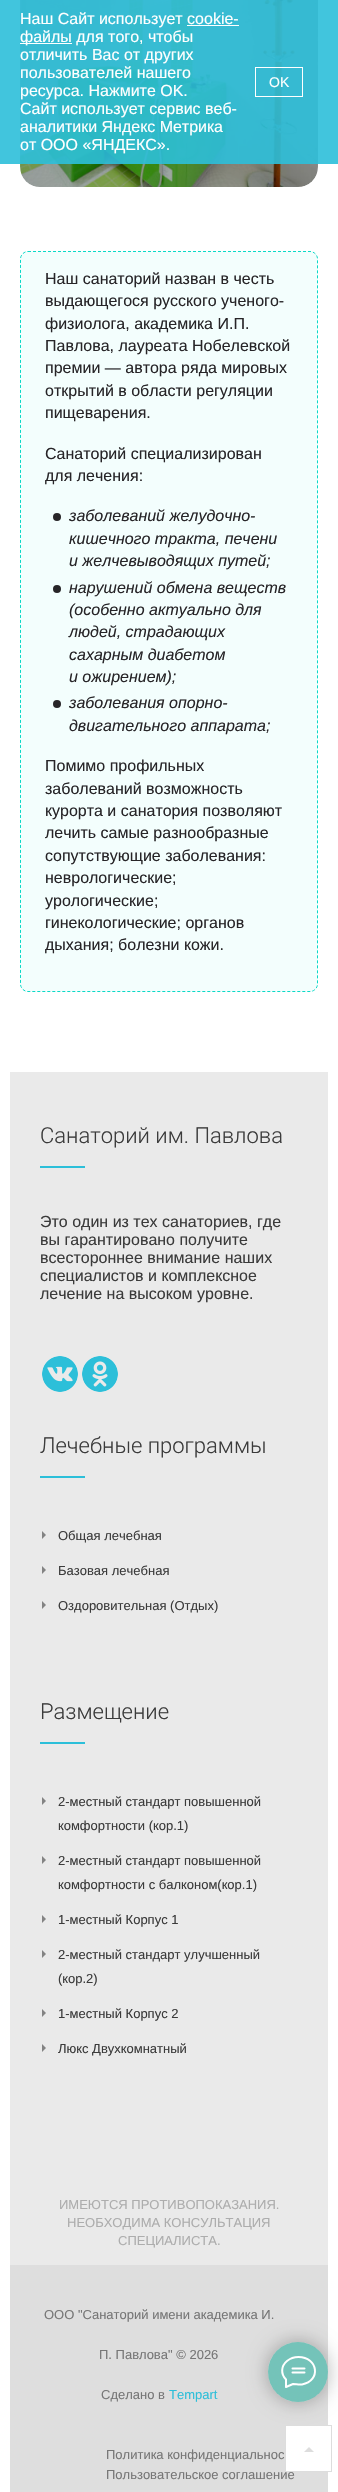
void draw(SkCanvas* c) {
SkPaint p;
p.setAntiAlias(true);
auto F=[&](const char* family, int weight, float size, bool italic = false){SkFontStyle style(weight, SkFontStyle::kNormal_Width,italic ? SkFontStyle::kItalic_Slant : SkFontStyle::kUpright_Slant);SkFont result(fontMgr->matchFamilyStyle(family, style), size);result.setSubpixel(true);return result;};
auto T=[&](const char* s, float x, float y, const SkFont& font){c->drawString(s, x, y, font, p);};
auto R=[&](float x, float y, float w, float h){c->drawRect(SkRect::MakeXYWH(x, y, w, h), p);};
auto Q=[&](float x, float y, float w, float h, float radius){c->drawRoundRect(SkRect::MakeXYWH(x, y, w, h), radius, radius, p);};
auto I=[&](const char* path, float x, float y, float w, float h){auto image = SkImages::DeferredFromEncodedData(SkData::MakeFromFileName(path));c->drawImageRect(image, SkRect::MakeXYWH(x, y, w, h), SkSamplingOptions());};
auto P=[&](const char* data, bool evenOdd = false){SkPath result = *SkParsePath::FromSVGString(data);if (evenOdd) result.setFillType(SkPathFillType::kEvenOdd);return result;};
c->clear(0xffffffff);
I("1.png",20,0,298,187);
p.setColor(0x33000000);
Q(20,-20,298,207,20);
p.setColor(0xe62cbfd9);
R(0,0,338,164);
auto f1 = F("Liberation Sans",400,16);
p.setColor(0xffffffff);
T("Наш Сайт использует cookie-",20,24,f1);
R(20,43,52,1);
T("файлы для того, чтобы",20,42,f1);
R(187,25,52,1);
T("отличить Вас от других",20,60,f1);
T("пользователей нашего",20,78,f1);
T("ресурса. Нажмите OK.",20,96,f1);
T("Сайт использует сервис веб-",20,114,f1);
T("аналитики Яндекс Метрика",20,132,f1);
T("от ООО «ЯНДЕКС».",20,150,f1);
p.setStroke(true);
p.setStrokeWidth(1);
c->drawRect(SkRect::MakeXYWH(255.5,67.5,47,29),p);
auto f2 = F("Liberation Sans",400,14);
p.setStroke(false);
T("OK",269,87,f2);
p.setColor(0xfff3fefd);
Q(20,251,298,741,8);
p.setStroke(true);
p.setColor(0xff0bd9c7);
p.setPathEffect(SkDashPathEffect::Make({{3,2}}, 0));
c->drawPath(P("M28 251.5h282c4 0 7.5 3.5 7.5 7.5v725c0 4-3.5 7.5-7.5 7.5h-282c-4 0-7.5-3.5-7.5-7.5v-725c0-4 3.5-7.5 7.5-7.5z"),p);
p.setPathEffect(nullptr);
p.setStroke(false);
p.setColor(0xff272528);
T("Наш санаторий назван в честь",45,284,f1);
T("выдающегося русского ученого-",45,306,f1);
T("физиолога, академика И.П.",45,329,f1);
T("Павлова, лауреата Нобелевской",45,351,f1);
T("премии — автора ряда мировых",45,373,f1);
T("открытий в области регуляции",45,396,f1);
T("пищеварения.",45,418,f1);
T("Санаторий специализирован",45,459,f1);
T("для лечения:",45,481,f1);
c->drawCircle(57,517,4,p);
auto f3 = F("Liberation Sans",400,16,true);
T("заболеваний желудочно-",69,521,f3);
T("кишечного тракта, печени",69,544,f3);
T("и желчевыводящих путей;",69,566,f3);
c->drawCircle(57,589,4,p);
T("нарушений обмена веществ",69,593,f3);
T("(особенно актуально для",69,615,f3);
T("людей, страдающих",69,637,f3);
T("сахарным диабетом",69,660,f3);
T("и ожирением);",69,682,f3);
c->drawCircle(57,704,4,p);
T("заболевания опорно-",69,708,f3);
T("двигательного аппарата;",69,731,f3);
T("Помимо профильных",45,771,f1);
T("заболеваний возможность",45,794,f1);
T("курорта и санатория позволяют",45,816,f1);
T("лечить самые разнообразные",45,838,f1);
T("сопутствующие заболевания:",45,861,f1);
T("неврологические;",45,883,f1);
T("урологические;",45,906,f1);
T("гинекологические; органов",45,928,f1);
T("дыхания; болезни кожи.",45,950,f1);
p.setColor(0xffeaeaea);
R(10,1072,318,1193);
auto f4 = F("Roboto",300,22);
p.setColor(0xff3b3b3b);
T("Санаторий им. Павлова",40,1143,f4);
p.setColor(0xff2cbfd9);
R(40,1166,45,2);
p.setColor(0xff3b3b3b);
T("Это один из тех санаториев, где",40,1227,f1);
T("вы гарантировано получите",40,1245,f1);
T("всестороннее внимание наших",40,1263,f1);
T("специалистов и комплексное",40,1281,f1);
T("лечение на высоком уровне.",40,1299,f1);
I("2.png",42,1356,36,36);
I("3.png",82,1356,36,36);
T("Лечебные программы",40,1453,f4);
p.setColor(0xff2cbfd9);
R(40,1476,45,2);
p.setColor(0xff838383);
c->drawPath(P("M42 1539v-8l4 4z"),p);
auto f5 = F("Liberation Sans",400,13);
p.setColor(0xff3b3b3b);
T("Общая лечебная",58,1540,f5);
p.setColor(0xff838383);
c->drawPath(P("M42 1574v-8l4 4z"),p);
p.setColor(0xff3b3b3b);
T("Базовая лечебная",58,1575,f5);
p.setColor(0xff838383);
c->drawPath(P("M42 1609v-8l4 4z"),p);
p.setColor(0xff3b3b3b);
T("Оздоровительная (Отдых)",58,1610,f5);
T("Размещение",40,1719,f4);
p.setColor(0xff2cbfd9);
R(40,1742,45,2);
p.setColor(0xff838383);
c->drawPath(P("M42 1805v-8l4 4z"),p);
p.setColor(0xff3b3b3b);
T("2-местный стандарт повышенной",58,1806,f5);
T("комфортности (кор.1)",58,1830,f5);
p.setColor(0xff838383);
c->drawPath(P("M42 1864v-8l4 4z"),p);
p.setColor(0xff3b3b3b);
T("2-местный стандарт повышенной",58,1865,f5);
T("комфортности с балконом(кор.1)",58,1889,f5);
p.setColor(0xff838383);
c->drawPath(P("M42 1923v-8l4 4z"),p);
p.setColor(0xff3b3b3b);
T("1-местный Корпус 1",58,1924,f5);
p.setColor(0xff838383);
c->drawPath(P("M42 1958v-8l4 4z"),p);
p.setColor(0xff3b3b3b);
T("2-местный стандарт улучшенный",58,1959,f5);
T("(кор.2)",58,1983,f5);
p.setColor(0xff838383);
c->drawPath(P("M42 2017v-8l4 4z"),p);
p.setColor(0xff3b3b3b);
T("1-местный Корпус 2",58,2018,f5);
p.setColor(0xff838383);
c->drawPath(P("M42 2052v-8l4 4z"),p);
p.setColor(0xff3b3b3b);
T("Люкс Двухкомнатный",58,2053,f5);
p.setColor(0xffadadad);
T("ИМЕЮТСЯ ПРОТИВОПОКАЗАНИЯ.",59,2209,f5);
T("НЕОБХОДИМА КОНСУЛЬТАЦИЯ",67,2227,f5);
T("СПЕЦИАЛИСТА.",118,2245,f5);
p.setColor(0xffdedede);
R(10,2265,318,227);
p.setColor(0xff767676);
T("Пользовательское соглашение",106,2479,f5);
p.setColor(0xfcffffff);
R(286,2426,42,45);
p.setStroke(true);
p.setColor(0xffdddddd);
c->drawRect(SkRect::MakeXYWH(285.5,2425.5,46,46),p);
p.setStroke(false);
c->drawPath(P("M314 2452h-10l5-5z"),p);
p.setColor(0xff767676);
T("ООО \"Санаторий имени академика И.",44,2319,f5);
T("П. Павлова\" © 2026",99,2359,f5);
T("Сделано в",101,2399,f5);
p.setColor(0xff2cbfd9);
T("Tempart",169,2399,f5);
p.setColor(0xff767676);
T("Политика конфиденциальнос",106,2459,f5);
c->save();
c->clipPath(P("M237 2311h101v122h-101zm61 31c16.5 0 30 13.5 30 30c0 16.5-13.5 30-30 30c-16.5 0-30-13.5-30-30c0-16.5 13.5-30 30-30z",true),true);
p.setColor(0x4d000000);
p.setMaskFilter(SkMaskFilter::MakeBlur(kNormal_SkBlurStyle, 10));
c->drawRoundRect(SkRect::MakeXYWH(268,2342,60,60),30,30,p);
p.setMaskFilter(nullptr);
c->restore();
p.setColor(0x8009a894);
c->drawCircle(298,2372,30,p);
p.setStroke(true);
p.setStrokeWidth(2);
p.setStrokeCap(SkPaint::kRound_Cap);
p.setStrokeJoin(SkPaint::kRound_Join);
p.setColor(0xffffffff);
c->drawPath(P("M292.5 2368.5h12m-12 4h12m-18.5 7c-5.5-5.5-5-13.5 1-18.5c3-2.5 7.5-4 11.5-4c19.5 0 23 24 3.5 27.5c-4 .5-5.5-.5-9-.5l-7 3v-7z"),p);
}
